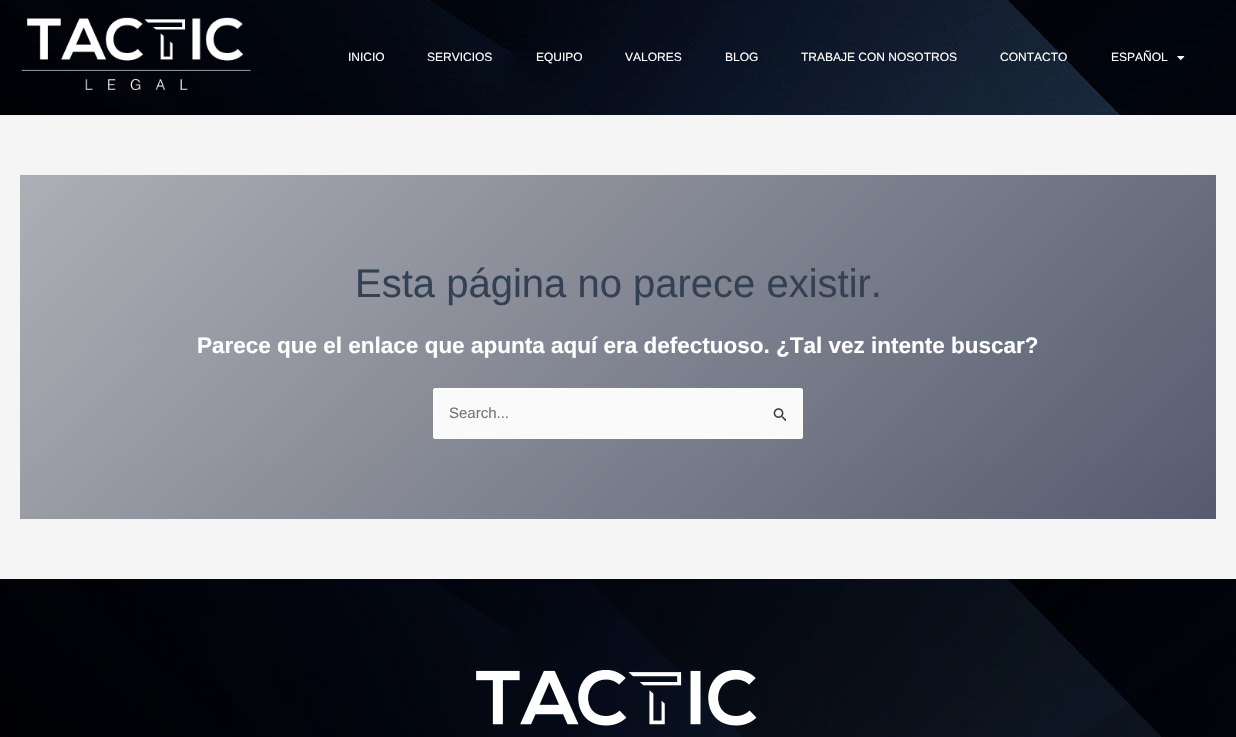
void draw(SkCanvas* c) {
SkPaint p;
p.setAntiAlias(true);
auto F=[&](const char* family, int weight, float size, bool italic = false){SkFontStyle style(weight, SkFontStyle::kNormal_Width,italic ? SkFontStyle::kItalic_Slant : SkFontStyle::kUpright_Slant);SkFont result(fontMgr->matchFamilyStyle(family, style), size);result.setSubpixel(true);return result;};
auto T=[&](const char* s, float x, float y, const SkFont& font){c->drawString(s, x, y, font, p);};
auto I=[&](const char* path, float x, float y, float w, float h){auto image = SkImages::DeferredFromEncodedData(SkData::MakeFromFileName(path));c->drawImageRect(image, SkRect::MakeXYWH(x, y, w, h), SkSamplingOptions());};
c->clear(0xfff5f5f5);
I("1.png",0,0,1236,115);
I("2.png",21,17,230,73);
auto f1 = F("Liberation Sans",400,12);
p.setColor(0xffffffff);
T("INICIO",348,61,f1);
T("SERVICIOS",427,61,f1);
T("EQUIPO",536,61,f1);
T("VALORES",625,61,f1);
T("BLOG",725,61,f1);
T("TRABAJE CON NOSOTROS",801,61,f1);
T("CONTACTO",1000,61,f1);
T("ESPAÑOL",1111,61,f1);
I("3.png",1177,56,8,4);
I("4.png",20,175,1196,344);
auto f2 = F("Liberation Sans",400,40);
p.setColor(0xff334155);
T("Esta página no parece existir.",355,297,f2);
auto f3 = F("Liberation Sans",700,22.5);
p.setColor(0xffffffff);
T("Parece que el enlace que apunta aquí era defectuoso. ¿Tal vez intente buscar?",197,353,f3);
p.setColor(0xfffafafa);
c->drawRoundRect(SkRect::MakeXYWH(433.5,388.5,369,50),1.5,1.5,p);
p.setStroke(true);
p.setStrokeWidth(1);
p.setColor(0xffffffff);
c->drawRoundRect(SkRect::MakeXYWH(433.5,388.5,369,50),1.5,1.5,p);
auto f4 = F("Liberation Sans",400,15);
p.setStroke(false);
p.setColor(0xff757575);
T("Search...",449,418,f4);
I("5.png",773,408,13,14);
I("6.png",0,579,1236,158);
I("7.png",0,579,1236,158);
I("8.png",476,670,281,56);
}
